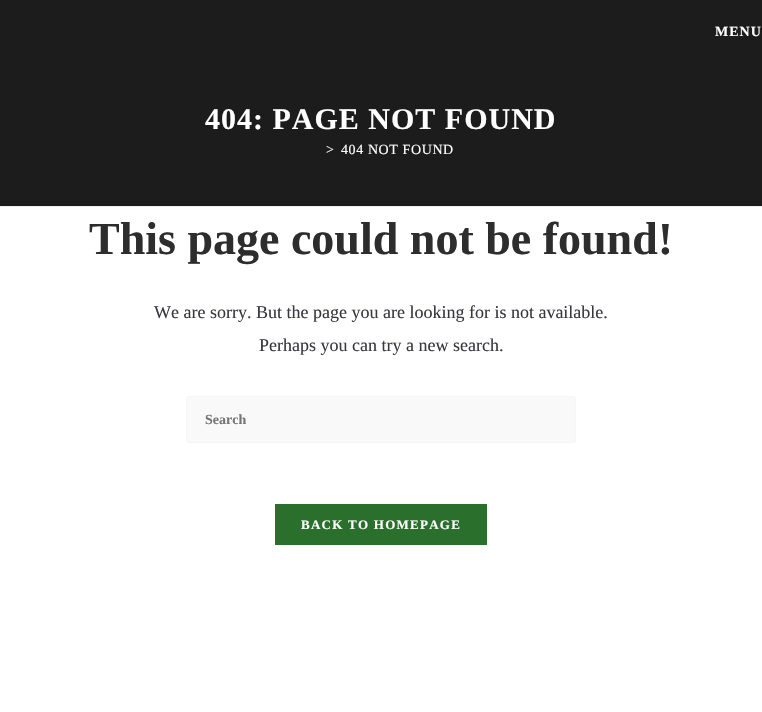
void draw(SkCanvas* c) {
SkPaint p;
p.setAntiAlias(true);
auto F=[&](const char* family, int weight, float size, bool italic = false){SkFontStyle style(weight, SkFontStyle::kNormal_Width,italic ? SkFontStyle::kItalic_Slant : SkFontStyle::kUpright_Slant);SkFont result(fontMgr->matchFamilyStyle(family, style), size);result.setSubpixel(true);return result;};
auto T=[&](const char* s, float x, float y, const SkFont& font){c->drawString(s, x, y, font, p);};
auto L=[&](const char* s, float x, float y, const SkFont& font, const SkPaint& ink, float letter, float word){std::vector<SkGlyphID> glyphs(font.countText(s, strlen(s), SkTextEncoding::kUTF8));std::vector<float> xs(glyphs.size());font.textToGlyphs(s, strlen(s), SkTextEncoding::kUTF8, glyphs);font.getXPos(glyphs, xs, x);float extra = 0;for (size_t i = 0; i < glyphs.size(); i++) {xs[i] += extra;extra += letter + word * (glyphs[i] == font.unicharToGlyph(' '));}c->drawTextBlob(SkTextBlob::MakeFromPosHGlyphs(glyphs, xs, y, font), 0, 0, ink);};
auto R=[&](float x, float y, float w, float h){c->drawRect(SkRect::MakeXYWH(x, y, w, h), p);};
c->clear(0xffffffff);
p.setColor(0xff1c1c1c);
R(0,0,762,206);
auto f1 = F("Liberation Serif",700,14);
p.setColor(0xffffffff);
L("MENU",715,36,f1,p,1,0);
p.setColor(0xffeeeeee);
R(0,206,762,1);
auto f2 = F("Liberation Serif",700,30);
p.setColor(0xffffffff);
L("404: PAGE NOT FOUND",205,129,f2,p,1,0);
auto f3 = F("Liberation Serif",400,14);
L(">",326,154,f3,p,.6,0);
L("404 NOT FOUND",341,154,f3,p,.6,0);
auto f4 = F("Liberation Serif",700,46);
p.setColor(0xff2d2d2d);
T("This page could not be found!",89,254,f4);
auto f5 = F("Liberation Serif",400,18);
p.setColor(0xff37373d);
T("We are sorry. But the page you are looking for is not available.",154,318,f5);
T("Perhaps you can try a new search.",259,351,f5);
p.setColor(0xfff9f9f9);
c->drawRoundRect(SkRect::MakeXYWH(186.5,396.5,389,46),2.5,2.5,p);
p.setStroke(true);
p.setStrokeWidth(1);
p.setColor(0xfff5f5f5);
c->drawRoundRect(SkRect::MakeXYWH(186.5,396.5,389,46),2.5,2.5,p);
p.setStroke(false);
p.setColor(0xff757575);
T("Search",205,424,f1);
p.setColor(0xff2a6f2c);
R(275,504,212,41);
auto f6 = F("Liberation Serif",700,13);
p.setColor(0xffffffff);
L("BACK TO HOMEPAGE",301,529,f6,p,1.25,0);
}
